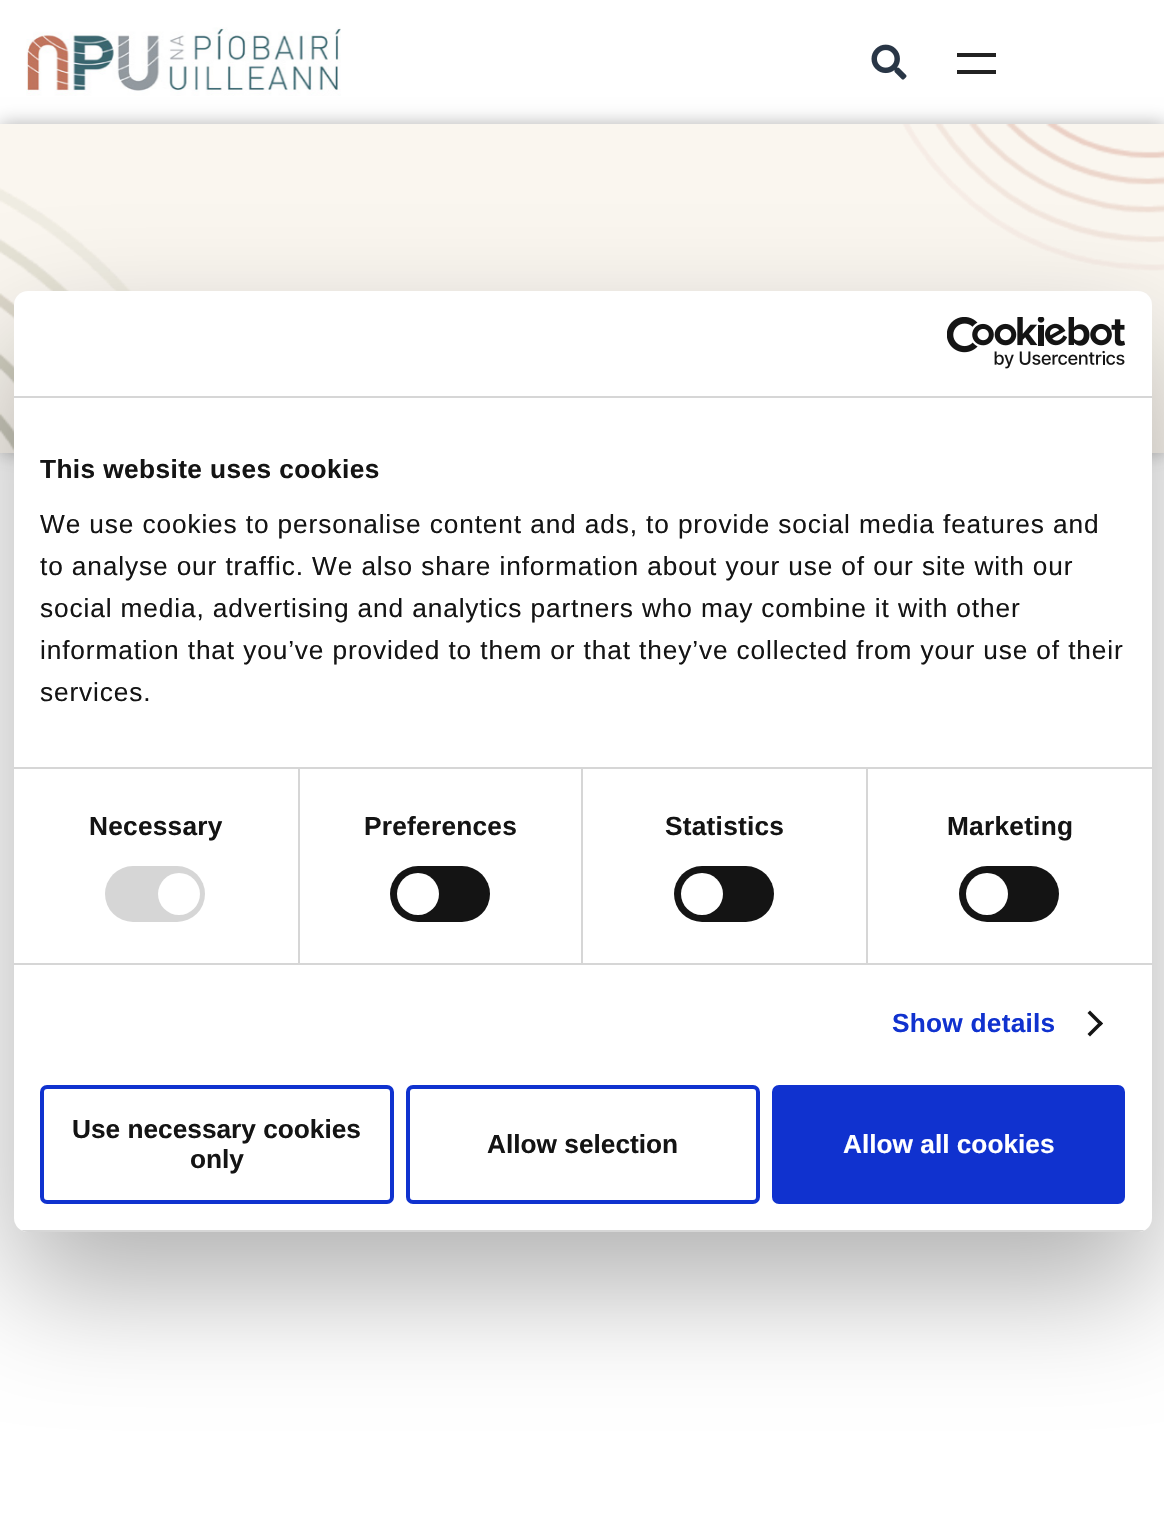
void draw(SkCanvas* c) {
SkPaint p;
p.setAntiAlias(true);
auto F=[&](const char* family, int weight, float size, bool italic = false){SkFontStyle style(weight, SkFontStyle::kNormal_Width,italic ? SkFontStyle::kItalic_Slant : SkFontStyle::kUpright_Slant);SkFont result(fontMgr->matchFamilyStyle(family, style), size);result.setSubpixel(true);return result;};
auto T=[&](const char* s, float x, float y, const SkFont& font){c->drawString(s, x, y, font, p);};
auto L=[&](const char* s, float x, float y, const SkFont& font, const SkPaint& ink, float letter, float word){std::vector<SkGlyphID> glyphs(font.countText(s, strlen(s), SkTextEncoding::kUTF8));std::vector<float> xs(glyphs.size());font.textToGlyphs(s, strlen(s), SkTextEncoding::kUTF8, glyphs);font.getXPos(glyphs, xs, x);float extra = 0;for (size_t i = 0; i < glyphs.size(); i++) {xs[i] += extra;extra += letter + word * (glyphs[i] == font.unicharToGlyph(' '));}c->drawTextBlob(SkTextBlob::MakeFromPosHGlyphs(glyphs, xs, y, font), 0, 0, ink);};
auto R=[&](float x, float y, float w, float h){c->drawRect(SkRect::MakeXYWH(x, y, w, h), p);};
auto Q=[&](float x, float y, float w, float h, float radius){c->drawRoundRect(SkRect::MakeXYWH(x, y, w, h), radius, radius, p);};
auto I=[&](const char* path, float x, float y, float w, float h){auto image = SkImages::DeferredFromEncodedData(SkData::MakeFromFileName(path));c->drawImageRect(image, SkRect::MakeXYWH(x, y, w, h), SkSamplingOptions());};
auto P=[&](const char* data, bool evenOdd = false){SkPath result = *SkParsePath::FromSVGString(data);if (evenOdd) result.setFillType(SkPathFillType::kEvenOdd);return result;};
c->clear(0xffffffff);
I("1.png",26,27,315,69);
I("2.png",871,44,36,36);
p.setColor(0xff222222);
R(957,53,39,4);
R(957,70,39,4);
p.setColor(0x4d000000);
p.setMaskFilter(SkMaskFilter::MakeBlur(kNormal_SkBlurStyle, 9));
c->drawRect(SkRect::MakeXYWH(0,124,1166,329),p);
p.setMaskFilter(nullptr);
p.setColor(0xfffaf6ef);
R(0,124,1164,329);
I("3.png",0,124,1164,328);
p.setColor(0x4d000000);
p.setMaskFilter(SkMaskFilter::MakeBlur(kNormal_SkBlurStyle, 59.5));
c->drawRoundRect(SkRect::MakeXYWH(14,347,1138,941),14,14,p);
p.setMaskFilter(nullptr);
p.setColor(0xffffffff);
Q(14,291,1138,941,14);
p.setColor(0xffd6d6d6);
R(14,396,1138,2);
I("4.png",947,317,178,52);
R(298,768,2,195);
R(581,768,2,195);
R(866,768,2,195);
R(14,767,1138,2);
auto f1 = F("Liberation Sans",700,26.25);
p.setColor(0xff141414);
L("This website uses cookies",40,478,f1,p,.4,0);
auto f2 = F("Liberation Sans",400,26.25);
L("We use cookies to personalise content and ads, to provide social media features and",40,533,f2,p,.88,0);
L("to analyse our traffic. We also share information about your use of our site with our",40,575,f2,p,.88,0);
L("social media, advertising and analytics partners who may combine it with other",40,617,f2,p,.88,0);
L("information that you’ve provided to them or that they’ve collected from your use of their",40,659,f2,p,.88,0);
L("services.",40,701,f2,p,.88,0);
p.setColor(0xffd6d6d6);
R(14,963,1138,2);
p.setColor(0xff141414);
L("Necessary",89,835,f1,p,.25,0);
p.setColor(0xffd6d6d6);
Q(105,866,100,56,28);
p.setColor(0xffffffff);
c->drawCircle(179,894,21,p);
p.setColor(0xff141414);
L("Preferences",364,835,f1,p,.25,0);
Q(390,866,100,56,28);
p.setColor(0xffffffff);
c->drawCircle(418,894,21,p);
p.setColor(0xff141414);
L("Statistics",665,835,f1,p,.25,0);
Q(674,866,100,56,28);
p.setColor(0xffffffff);
c->drawCircle(702,894,21,p);
p.setColor(0xff141414);
L("Marketing",947,835,f1,p,.25,0);
Q(959,866,100,56,28);
p.setColor(0xffffffff);
c->drawCircle(987,894,21,p);
p.setColor(0xff1032cf);
L("Show details",892,1032,f1,p,.25,0);
p.setColor(0xff141414);
c->drawPath(P("M1090 1010.5l13 13l-2.5 2.5l-13-13z"),p);
c->drawPath(P("M1100.5 1021l2.5 2.5l-13 13l-2.5-2.5z"),p);
c->save();
c->clipPath(P("M28 291h1110c7.5 0 14 6.5 14 14v913c0 7.5-6.5 14-14 14h-1110c-7.5 0-14-6.5-14-14v-913c0-7.5 6.5-14 14-14z"),true);
p.setColor(0xffd6d6d6);
R(14,1230,1138,2);
c->restore();
p.setStroke(true);
p.setStrokeWidth(4);
p.setColor(0xff1032cf);
c->drawRoundRect(SkRect::MakeXYWH(42,1087,350,115),5,5,p);
p.setStroke(false);
p.setColor(0xff141414);
T("Use necessary cookies",72,1138,f1);
T("only",190,1168,f1);
p.setStroke(true);
p.setColor(0xff1032cf);
c->drawRoundRect(SkRect::MakeXYWH(408,1087,350,115),5,5,p);
p.setStroke(false);
p.setColor(0xff141414);
T("Allow selection",487,1153,f1);
p.setColor(0xff1032cf);
c->drawRoundRect(SkRect::MakeXYWH(774,1087,349,115),5,5,p);
p.setStroke(true);
c->drawRoundRect(SkRect::MakeXYWH(774,1087,349,115),5,5,p);
p.setStroke(false);
p.setColor(0xffffffff);
T("Allow all cookies",843,1153,f1);
}
